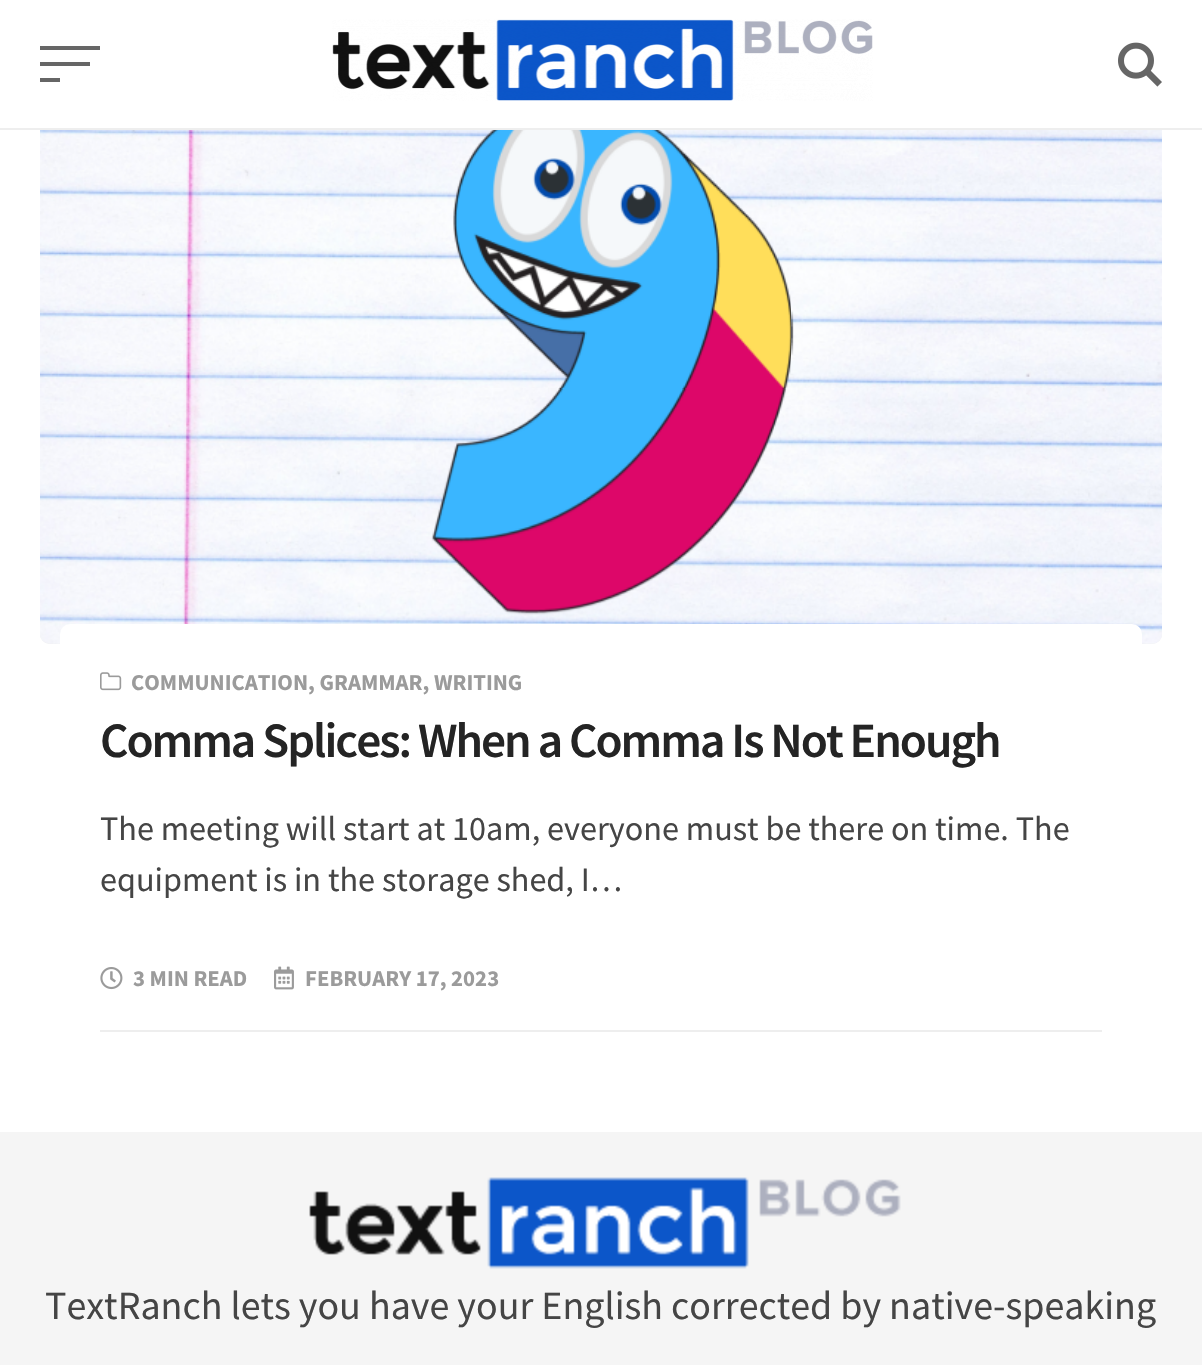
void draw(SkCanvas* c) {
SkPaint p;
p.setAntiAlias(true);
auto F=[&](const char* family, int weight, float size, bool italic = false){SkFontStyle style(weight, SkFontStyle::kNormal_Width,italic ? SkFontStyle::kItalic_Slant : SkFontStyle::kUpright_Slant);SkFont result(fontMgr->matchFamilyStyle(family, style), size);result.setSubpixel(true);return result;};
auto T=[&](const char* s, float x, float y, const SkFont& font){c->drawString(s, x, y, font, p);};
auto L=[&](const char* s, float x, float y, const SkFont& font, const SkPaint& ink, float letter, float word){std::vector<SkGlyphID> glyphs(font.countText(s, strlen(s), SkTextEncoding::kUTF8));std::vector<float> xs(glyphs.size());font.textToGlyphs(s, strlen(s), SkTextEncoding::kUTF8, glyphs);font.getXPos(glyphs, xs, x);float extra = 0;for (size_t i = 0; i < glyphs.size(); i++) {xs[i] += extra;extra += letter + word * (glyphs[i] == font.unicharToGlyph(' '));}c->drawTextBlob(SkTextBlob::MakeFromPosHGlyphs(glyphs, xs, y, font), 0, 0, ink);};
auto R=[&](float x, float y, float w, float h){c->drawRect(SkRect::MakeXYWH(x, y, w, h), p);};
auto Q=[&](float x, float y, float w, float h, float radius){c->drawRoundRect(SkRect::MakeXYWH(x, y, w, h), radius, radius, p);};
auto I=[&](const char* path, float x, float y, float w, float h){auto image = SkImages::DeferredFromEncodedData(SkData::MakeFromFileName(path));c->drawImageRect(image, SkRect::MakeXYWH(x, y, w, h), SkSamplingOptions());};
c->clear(0xffffffff);
p.setColor(0xffeeeeee);
Q(40,12,1122,632,10);
p.setColor(0xffffffff);
R(40,12,1122,116);
p.setColor(0xffeeeeee);
R(0,128,1202,2);
p.setColor(0xff666666);
R(40,46,60,4);
R(40,62,50,4);
R(40,78,20,4);
I("1.png",332,19,541,82);
I("2.png",1118,42,44,45);
I("4.png",572,305,60,46);
I("3.png",40,130,1122,514);
p.setColor(0xffffffff);
Q(60,624,1082,322,10);
I("5.png",100,672,22,19);
auto f1 = F("Source Sans Pro",700,22.75);
p.setColor(0xff9b9b9b);
T("COMMUNICATION, GRAMMAR, WRITING",131,690,f1);
auto f2 = F("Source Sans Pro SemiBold",600,49.4);
p.setColor(0xff242424);
L("Comma Splices: When a Comma Is Not Enough",100,757,f2,p,-2,0);
auto f3 = F("Source Sans Pro",400,34.2);
p.setColor(0xff454545);
T("The meeting will start at 10am, everyone must be there on time. The",100,840,f3);
T("equipment is in the storage shed, I…",100,891,f3);
I("6.png",100,967,23,23);
p.setColor(0xff9b9b9b);
T("3 MIN READ",133,986,f1);
I("7.png",274,966,20,24);
T("FEBRUARY 17, 2023",305,986,f1);
p.setColor(0xffeeeeee);
R(100,1030,1002,2);
p.setColor(0xfff5f5f5);
R(0,1132,1202,233);
I("8.png",309,1177,592,92);
auto f4 = F("Source Sans Pro",400,40);
p.setColor(0xff454545);
T("TextRanch lets you have your English corrected by native-speaking",45,1319,f4);
}
